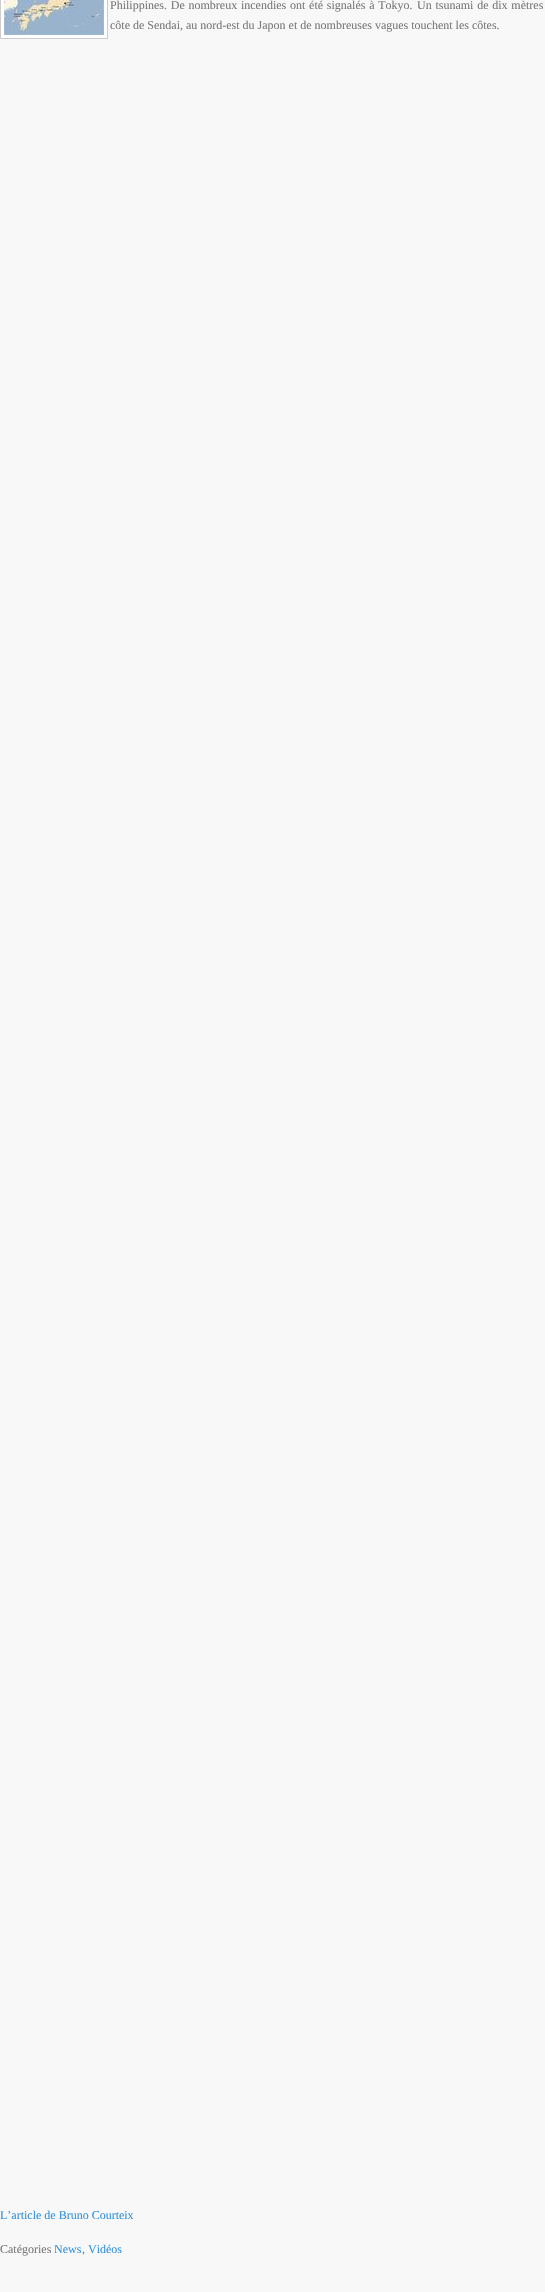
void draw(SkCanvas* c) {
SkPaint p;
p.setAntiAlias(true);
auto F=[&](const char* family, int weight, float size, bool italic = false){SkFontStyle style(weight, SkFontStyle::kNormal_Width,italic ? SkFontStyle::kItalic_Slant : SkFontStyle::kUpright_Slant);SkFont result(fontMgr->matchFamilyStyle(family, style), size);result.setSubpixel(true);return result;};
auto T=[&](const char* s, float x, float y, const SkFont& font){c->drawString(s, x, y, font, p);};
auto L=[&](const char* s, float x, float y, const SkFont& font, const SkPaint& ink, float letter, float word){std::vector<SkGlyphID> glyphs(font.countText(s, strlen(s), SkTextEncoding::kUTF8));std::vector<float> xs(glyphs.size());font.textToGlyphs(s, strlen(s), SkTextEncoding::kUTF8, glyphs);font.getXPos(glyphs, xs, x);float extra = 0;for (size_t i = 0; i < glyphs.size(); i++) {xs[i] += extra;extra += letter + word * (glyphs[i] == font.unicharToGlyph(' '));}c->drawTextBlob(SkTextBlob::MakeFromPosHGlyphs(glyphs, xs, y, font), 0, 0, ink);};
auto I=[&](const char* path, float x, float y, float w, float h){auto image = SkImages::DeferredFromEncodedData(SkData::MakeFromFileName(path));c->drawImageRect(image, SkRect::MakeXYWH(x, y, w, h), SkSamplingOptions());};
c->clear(0xfff9f8f8);
p.setColor(0xffffffff);
c->drawRect(SkRect::MakeXYWH(.5,-.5,107,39),p);
p.setStroke(true);
p.setStrokeWidth(1);
p.setColor(0xffcdcccc);
c->drawRect(SkRect::MakeXYWH(.5,-.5,107,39),p);
I("1.png",4,0,100,35);
auto f1 = F("Liberation Serif",400,12);
p.setStroke(false);
p.setColor(0xff7a7979);
L("Philippines. De nombreux incendies ont été signalés à Tokyo.",110,9,f1,p,0,.75);
L("Un tsunami de dix mètres",417,9,f1,p,0,.75);
T("côte de Sendai, au nord-est du Japon et de nombreuses vagues touchent les côtes.",110,29,f1);
p.setColor(0xff3392d9);
T("L’article de Bruno Courteix",0,2219,f1);
p.setColor(0xff7a7979);
T("Catégories",0,2253,f1);
p.setColor(0xff3392d9);
T("News",54,2253,f1);
p.setColor(0xff7a7979);
T(",",82,2253,f1);
p.setColor(0xff3392d9);
T("Vidéos",88,2253,f1);
}
